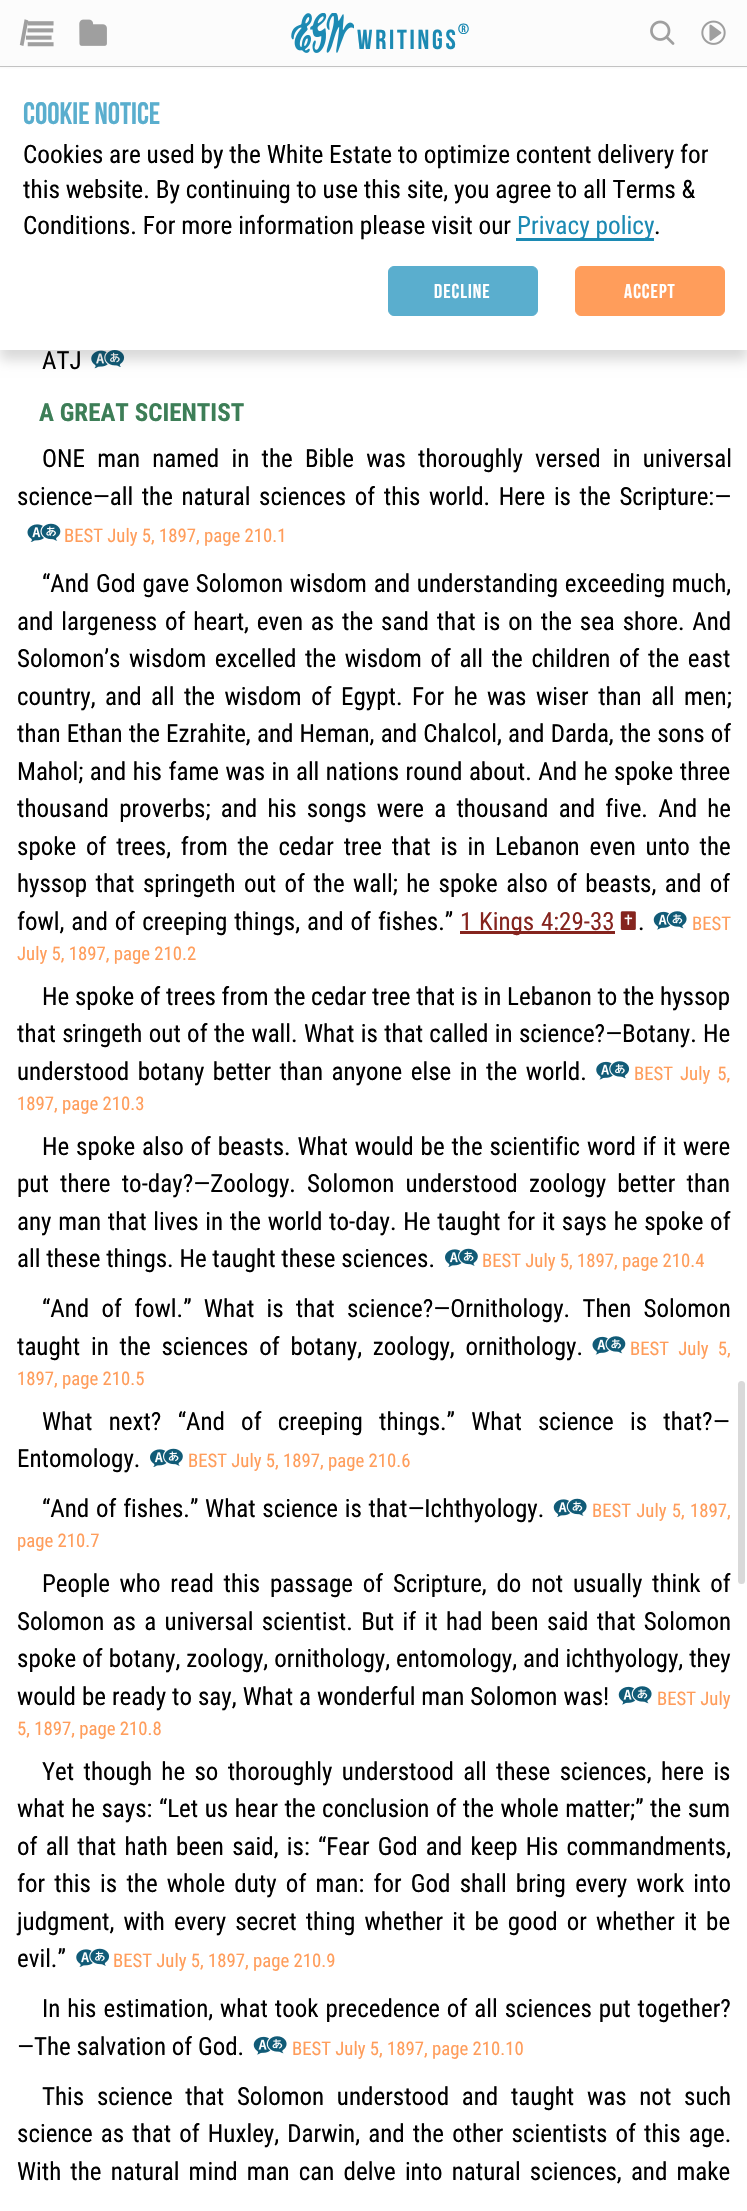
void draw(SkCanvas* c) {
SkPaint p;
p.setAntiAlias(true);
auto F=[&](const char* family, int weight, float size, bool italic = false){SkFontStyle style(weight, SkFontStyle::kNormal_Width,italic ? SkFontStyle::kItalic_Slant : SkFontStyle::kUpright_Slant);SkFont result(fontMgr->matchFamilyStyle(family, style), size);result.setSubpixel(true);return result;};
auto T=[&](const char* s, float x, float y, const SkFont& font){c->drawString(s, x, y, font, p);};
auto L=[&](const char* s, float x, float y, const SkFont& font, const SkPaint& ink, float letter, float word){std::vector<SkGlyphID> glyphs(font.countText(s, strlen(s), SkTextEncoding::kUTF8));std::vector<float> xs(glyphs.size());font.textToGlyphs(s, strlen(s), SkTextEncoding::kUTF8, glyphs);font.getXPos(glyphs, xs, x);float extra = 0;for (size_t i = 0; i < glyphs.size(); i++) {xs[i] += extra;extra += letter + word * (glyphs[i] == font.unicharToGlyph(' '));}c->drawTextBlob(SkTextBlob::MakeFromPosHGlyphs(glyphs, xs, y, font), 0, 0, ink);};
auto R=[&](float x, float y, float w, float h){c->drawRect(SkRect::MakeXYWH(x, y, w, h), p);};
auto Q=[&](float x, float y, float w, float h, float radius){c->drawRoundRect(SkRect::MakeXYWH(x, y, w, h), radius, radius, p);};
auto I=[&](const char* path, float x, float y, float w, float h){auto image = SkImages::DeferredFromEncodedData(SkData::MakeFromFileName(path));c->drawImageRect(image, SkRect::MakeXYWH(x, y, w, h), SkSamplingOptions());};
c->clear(0xffffffff);
p.setColor(0xfffcfcfc);
R(0,0,747,68);
p.setColor(0xffc4c4c4);
R(0,66,747,1);
I("1.png",19,19,35,28);
I("2.png",79,19,28,27);
I("3.png",291,13,63,40);
auto f1 = F("Bebas Neue",700,27.5);
p.setColor(0xff1c8ab3);
L("writings",357,49,f1,p,2.75,0);
auto f2 = F("Bebas Neue",700,15);
L("®",458,34,f2,p,1,0);
I("4.png",650,20,25,25);
I("5.png",701,20,25,25);
I("6.png",91,350,34,19);
p.setColor(0x26000000);
p.setMaskFilter(SkMaskFilter::MakeBlur(kNormal_SkBlurStyle, 6));
c->drawRect(SkRect::MakeXYWH(0,78,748,282),p);
p.setMaskFilter(nullptr);
p.setColor(0xffffffff);
R(0,69,747,281);
auto f3 = F("Bebas Neue",700,31);
p.setColor(0xff5aaece);
T("Cookie Notice",23,124,f3);
auto f4 = F("Roboto Condensed",400,25.3);
p.setColor(0xff000000);
T("Cookies are used by the White Estate to optimize content delivery for",23,163,f4);
T("this website. By continuing to use this site, you agree to all Terms &",23,198,f4);
T("Conditions. For more information please visit our",23,234,f4);
p.setColor(0xff1c8ab3);
R(516,238,138,3);
T("Privacy policy",517,234,f4);
p.setColor(0xff000000);
T(".",654,234,f4);
p.setColor(0xff5aaece);
c->drawRoundRect(SkRect::MakeXYWH(388.5,266.5,149,49),5.5,5.5,p);
p.setStroke(true);
p.setStrokeWidth(1);
c->drawRoundRect(SkRect::MakeXYWH(388.5,266.5,149,49),5.5,5.5,p);
auto f5 = F("Bebas Neue",700,20);
p.setStroke(false);
p.setColor(0xffffffff);
L("Decline",434,298,f5,p,1,0);
p.setColor(0xffff9d5b);
c->drawRoundRect(SkRect::MakeXYWH(575.5,266.5,149,49),5.5,5.5,p);
p.setStroke(true);
c->drawRoundRect(SkRect::MakeXYWH(575.5,266.5,149,49),5.5,5.5,p);
p.setStroke(false);
p.setColor(0xffffffff);
L("Accept",624,298,f5,p,1,0);
auto f6 = F("Roboto Condensed",400,25);
p.setColor(0xff000000);
T("ATJ",42,369,f6);
auto f7 = F("Roboto Condensed",700,25);
p.setColor(0xff3d7e57);
T("A GREAT SCIENTIST",39,421,f7);
p.setColor(0xff000000);
L("ONE man named in the Bible was thoroughly versed in universal",42,467,f6,p,0,6.5);
L("science—all the natural sciences of this world. Here is the Scripture:—",17,505,f6,p,0,2.9);
I("7.png",27,523,34,19);
auto f8 = F("Roboto Condensed",400,18.75);
p.setColor(0xffff9d5b);
T("BEST July 5, 1897, page 210.1",64,542,f8);
p.setColor(0xff000000);
L("“And God gave Solomon wisdom and understanding exceeding much,",42,592,f6,p,0,1);
L("and largeness of heart, even as the sand that is on the sea shore. And",17,630,f6,p,0,2.1);
L("Solomon’s wisdom excelled the wisdom of all the children of the east",17,667,f6,p,0,2.9);
L("country, and all the wisdom of Egypt. For he was wiser than all men;",17,705,f6,p,0,3.75);
L("than Ethan the Ezrahite, and Heman, and Chalcol, and Darda, the sons of",17,742,f6,p,0,.4);
L("Mahol; and his fame was in all nations round about. And he spoke three",17,780,f6,p,0,.8);
L("thousand proverbs; and his songs were a thousand and five. And he",17,817,f6,p,0,4.5);
L("spoke of trees, from the cedar tree that is in Lebanon even unto the",17,855,f6,p,0,4.1);
L("hyssop that springeth out of the wall; he spoke also of beasts, and of",17,892,f6,p,0,2.75);
L("fowl, and of creeping things, and of fishes.”",17,930,f6,p,0,1.25);
p.setColor(0xff85241e);
R(460,931,155,3);
L("1 Kings 4:29-33",460,930,f6,p,0,1);
I("8.png",620,911,16,19);
p.setColor(0xff000000);
T(".",638,930,f6);
I("9.png",653,911,34,19);
p.setColor(0xffff9d5b);
T("BEST",692,930,f8);
T("July 5, 1897, page 210.2",17,960,f8);
p.setColor(0xff000000);
T("He spoke of trees from the cedar tree that is in Lebanon to the hyssop",42,1005,f6);
L("that sringeth out of the wall. What is that called in science?—Botany. He",17,1042,f6,p,0,.6);
L("understood botany better than anyone else in the world.",17,1080,f6,p,0,2.75);
I("10.png",596,1061,34,19);
p.setColor(0xffff9d5b);
L("BEST July 5,",634,1080,f8,p,0,2.75);
T("1897, page 210.3",17,1110,f8);
p.setColor(0xff000000);
L("He spoke also of beasts. What would be the scientific word if it were",42,1155,f6,p,0,1.1);
L("put there to-day?—Zoology. Solomon understood zoology better than",17,1192,f6,p,0,5.5);
L("any man that lives in the world to-day. He taught for it says he spoke of",17,1230,f6,p,0,1);
T("all these things. He taught these sciences.",17,1267,f6);
I("11.png",445,1248,33,19);
p.setColor(0xffff9d5b);
T("BEST July 5, 1897, page 210.4",482,1267,f8);
p.setColor(0xff000000);
L("“And of fowl.” What is that science?—Ornithology. Then Solomon",42,1317,f6,p,0,6.5);
L("taught in the sciences of botany, zoology, ornithology.",17,1355,f6,p,0,5);
I("12.png",592,1336,34,19);
p.setColor(0xffff9d5b);
L("BEST July 5,",630,1355,f8,p,0,5);
T("1897, page 210.5",17,1385,f8);
p.setColor(0xff000000);
L("What next? “And of creeping things.” What science is that?—",42,1430,f6,p,0,10.5);
T("Entomology.",17,1467,f6);
I("11.png",150,1448,33,19);
p.setColor(0xffff9d5b);
T("BEST July 5, 1897, page 210.6",188,1467,f8);
p.setColor(0xff000000);
L("“And of fishes.” What science is that—Ichthyology.",42,1517,f6,p,0,1);
I("13.png",553,1498,34,19);
p.setColor(0xffff9d5b);
L("BEST July 5,",592,1517,f8,p,0,1);
T("1897,",690,1517,f8);
T("page 210.7",17,1547,f8);
p.setColor(0xff000000);
L("People who read this passage of Scripture, do not usually think of",42,1592,f6,p,0,4);
L("Solomon as a universal scientist. But if it had been said that Solomon",17,1630,f6,p,0,2.6);
L("spoke of botany, zoology, ornithology, entomology, and ichthyology, they",17,1667,f6,p,0,.25);
L("would be ready to say, What a wonderful man Solomon was!",17,1705,f6,p,0,.25);
I("9.png",618,1686,34,19);
p.setColor(0xffff9d5b);
T("BEST July",657,1705,f8);
T("5, 1897, page 210.8",17,1735,f8);
p.setColor(0xff000000);
L("Yet though he so thoroughly understood all these sciences, here is",42,1780,f6,p,0,3.6);
L("what he says: “Let us hear the conclusion of the whole matter;” the sum",17,1817,f6,p,0,.75);
L("of all that hath been said, is: “Fear God and keep His commandments,",17,1855,f6,p,0,2.5);
L("for this is the whole duty of man: for God shall bring every work into",17,1892,f6,p,0,3.5);
L("judgment, with every secret thing whether it be good or whether it be",17,1930,f6,p,0,3.4);
T("evil.”",17,1967,f6);
I("14.png",76,1948,34,19);
p.setColor(0xffff9d5b);
T("BEST July 5, 1897, page 210.9",113,1967,f8);
p.setColor(0xff000000);
L("In his estimation, what took precedence of all sciences put together?",42,2017,f6,p,0,1.25);
T("—The salvation of God.",17,2055,f6);
I("9.png",253,2036,34,19);
p.setColor(0xffff9d5b);
T("BEST July 5, 1897, page 210.10",292,2055,f8);
p.setColor(0xff000000);
L("This science that Solomon understood and taught was not such",42,2105,f6,p,0,7);
L("science as that of Huxley, Darwin, and the other scientists of this age.",17,2142,f6,p,0,2.4);
L("With the natural mind man can delve into natural sciences, and make",17,2180,f6,p,0,3.4);
p.setColor(0xffd9d9d9);
Q(738,1381,7,203,3.5);
}
